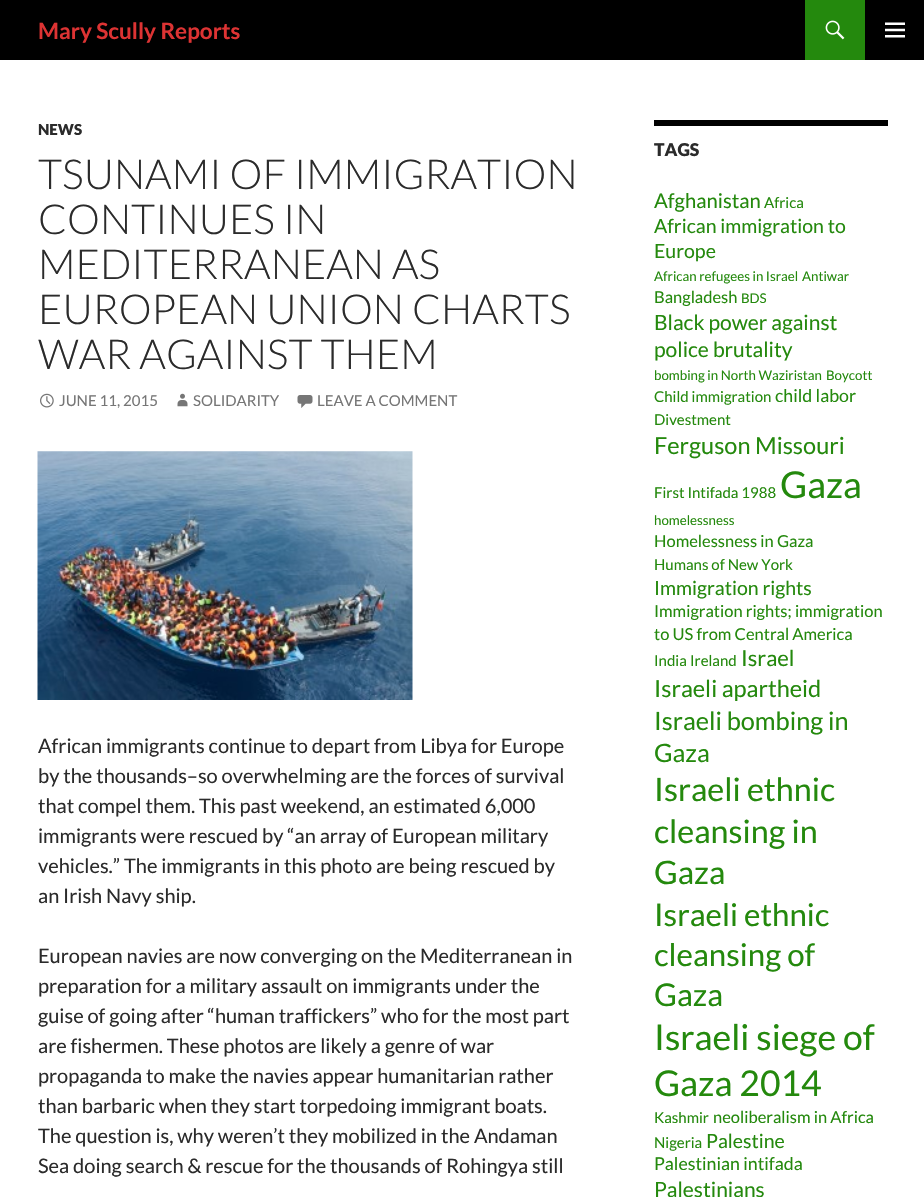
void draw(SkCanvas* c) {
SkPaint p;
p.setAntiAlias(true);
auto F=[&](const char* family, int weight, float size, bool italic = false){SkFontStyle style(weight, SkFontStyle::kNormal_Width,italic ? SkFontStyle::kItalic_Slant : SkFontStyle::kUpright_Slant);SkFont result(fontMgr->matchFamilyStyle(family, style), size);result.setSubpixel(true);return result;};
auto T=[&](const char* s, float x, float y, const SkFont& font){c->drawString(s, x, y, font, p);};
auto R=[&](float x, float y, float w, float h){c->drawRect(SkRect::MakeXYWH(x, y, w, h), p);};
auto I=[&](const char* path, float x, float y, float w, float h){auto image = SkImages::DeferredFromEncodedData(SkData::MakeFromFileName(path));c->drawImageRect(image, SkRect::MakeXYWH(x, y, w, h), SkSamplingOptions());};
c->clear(0xffffffff);
p.setColor(0xff000000);
R(0,0,924,60);
auto f1 = F("Lato",700,22.5);
p.setColor(0xffdd3333);
T("Mary Scully Reports",38,39,f1);
p.setColor(0xff24890d);
R(805,0,60,60);
I("1.png",825,20,20,20);
I("2.png",885,22,20,16);
auto f2 = F("Lato",900,15);
p.setColor(0xff2b2b2b);
T("NEWS",38,135,f2);
auto f3 = F("Lato",300,41.25);
T("TSUNAMI OF IMMIGRATION",38,189,f3);
T("CONTINUES IN",38,234,f3);
T("MEDITERRANEAN AS",38,279,f3);
T("EUROPEAN UNION CHARTS",38,324,f3);
T("WAR AGAINST THEM",38,369,f3);
I("3.png",40,393,14,15);
auto f4 = F("Lato",400,15);
p.setColor(0xff767676);
T("JUNE 11, 2015",59,406,f4);
I("4.png",177,393,11,14);
T("SOLIDARITY",193,406,f4);
I("5.png",297,395,16,13);
T("LEAVE A COMMENT",317,406,f4);
I("6.png",37,451,376,249);
auto f5 = F("Lato",400,20);
p.setColor(0xff2b2b2b);
T("African immigrants continue to depart from Libya for Europe",38,753,f5);
T("by the thousands–so overwhelming are the forces of survival",38,783,f5);
T("that compel them. This past weekend, an estimated 6,000",38,813,f5);
T("immigrants were rescued by “an array of European military",38,843,f5);
T("vehicles.” The immigrants in this photo are being rescued by",38,873,f5);
T("an Irish Navy ship.",38,903,f5);
T("European navies are now converging on the Mediterranean in",38,963,f5);
T("preparation for a military assault on immigrants under the",38,993,f5);
T("guise of going after “human traffickers” who for the most part",38,1023,f5);
T("are fishermen. These photos are likely a genre of war",38,1053,f5);
T("propaganda to make the navies appear humanitarian rather",38,1083,f5);
T("than barbaric when they start torpedoing immigrant boats.",38,1113,f5);
T("The question is, why weren’t they mobilized in the Andaman",38,1143,f5);
T("Sea doing search & rescue for the thousands of Rohingya still",38,1173,f5);
p.setColor(0xff000000);
R(654,120,234,6);
auto f6 = F("Lato",900,17.5);
p.setColor(0xff2b2b2b);
T("TAGS",654,156,f6);
auto f7 = F("Lato",400,20.25);
p.setColor(0xff24890d);
T("Afghanistan",654,208,f7);
T("Africa",764,208,f4);
auto f8 = F("Lato",400,19.5);
T("African immigration to",654,233,f8);
T("Europe",654,258,f8);
auto f9 = F("Lato",400,13.3);
T("African refugees in Israel",654,281,f9);
T("Antiwar",802,281,f9);
auto f10 = F("Lato",400,16.5);
T("Bangladesh",654,303,f10);
T("BDS",741,303,f9);
auto f11 = F("Lato",400,21);
T("Black power against",654,330,f11);
T("police brutality",654,357,f11);
T("bombing in North Waziristan",654,380,f9);
T("Boycott",826,380,f9);
T("Child immigration",654,402,f4);
auto f12 = F("Lato",400,17.75);
T("child labor",775,402,f12);
T("Divestment",654,425,f4);
auto f13 = F("Lato",400,23.5);
T("Ferguson Missouri",654,454,f13);
T("First Intifada 1988",654,498,f4);
auto f14 = F("Lato",400,37);
T("Gaza",780,498,f14);
T("homelessness",654,525,f9);
T("Homelessness in Gaza",654,547,f10);
T("Humans of New York",654,570,f4);
T("Immigration rights",654,595,f8);
T("Immigration rights; immigration",654,617,f10);
T("to US from Central America",654,640,f10);
T("India",654,666,f4);
T("Ireland",690,666,f4);
auto f15 = F("Lato",400,22);
T("Israel",741,666,f15);
T("Israeli apartheid",654,697,f13);
auto f16 = F("Lato",400,25.25);
T("Israeli bombing in",654,730,f16);
T("Gaza",654,762,f16);
auto f17 = F("Lato",400,32.25);
T("Israeli ethnic",654,801,f17);
T("cleansing in",654,843,f17);
T("Gaza",654,884,f17);
auto f18 = F("Lato",400,31.25);
T("Israeli ethnic",654,926,f18);
T("cleansing of",654,966,f18);
T("Gaza",654,1006,f18);
auto f19 = F("Lato",400,35.5);
T("Israeli siege of",654,1050,f19);
T("Gaza 2014",654,1096,f19);
T("Kashmir",654,1123,f4);
T("neoliberalism in Africa",713,1123,f10);
T("Nigeria",654,1148,f4);
T("Palestine",706,1148,f8);
T("Palestinian intifada",654,1170,f12);
T("Palestinians",654,1197,f11);
}
